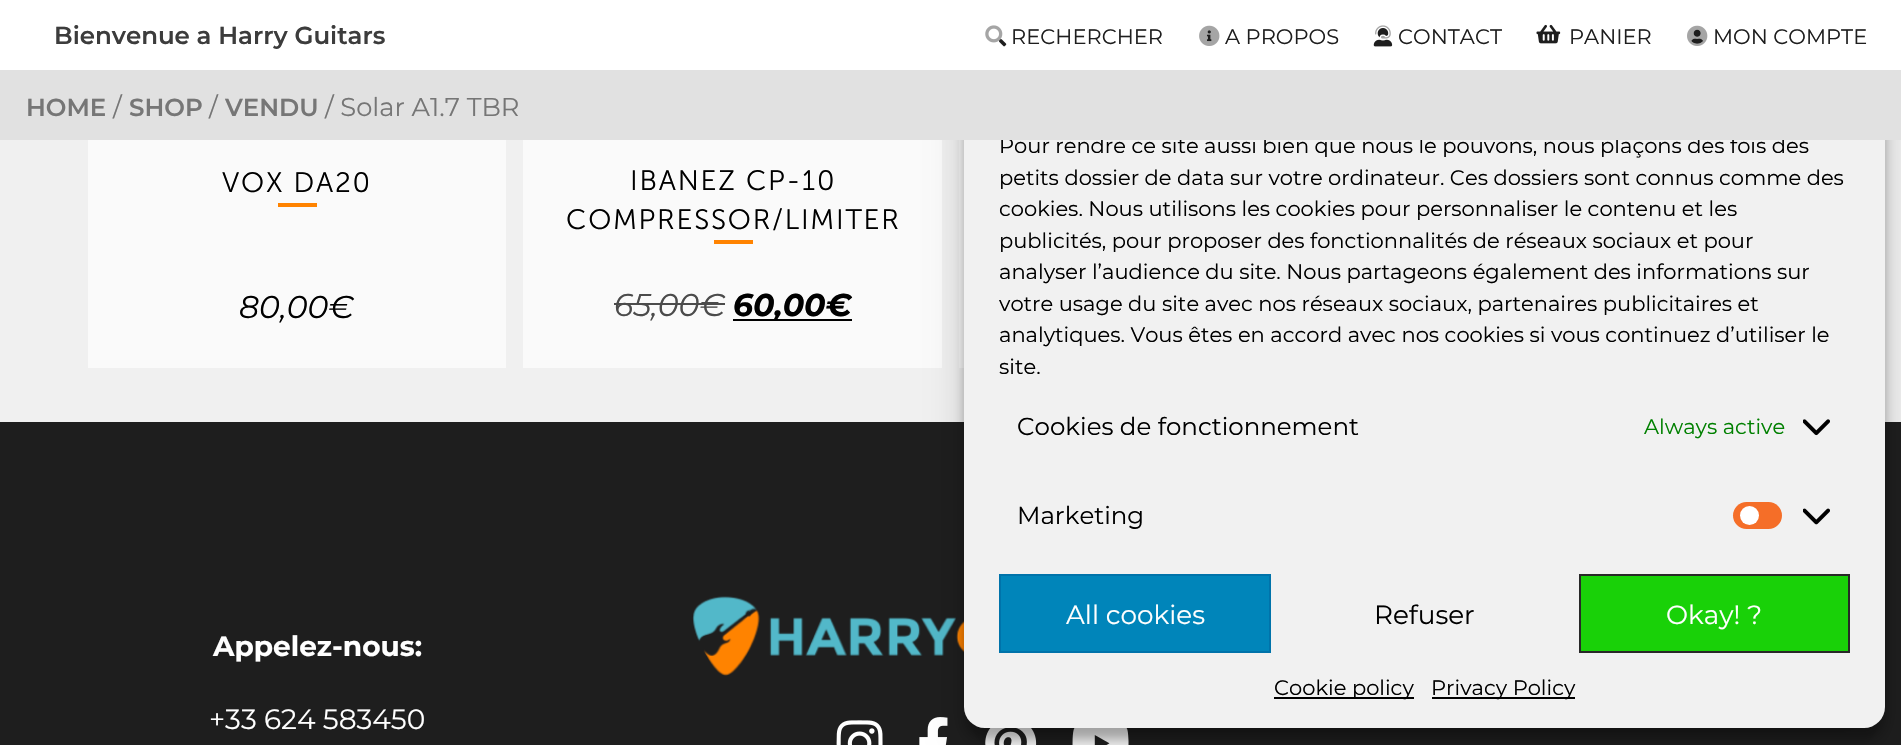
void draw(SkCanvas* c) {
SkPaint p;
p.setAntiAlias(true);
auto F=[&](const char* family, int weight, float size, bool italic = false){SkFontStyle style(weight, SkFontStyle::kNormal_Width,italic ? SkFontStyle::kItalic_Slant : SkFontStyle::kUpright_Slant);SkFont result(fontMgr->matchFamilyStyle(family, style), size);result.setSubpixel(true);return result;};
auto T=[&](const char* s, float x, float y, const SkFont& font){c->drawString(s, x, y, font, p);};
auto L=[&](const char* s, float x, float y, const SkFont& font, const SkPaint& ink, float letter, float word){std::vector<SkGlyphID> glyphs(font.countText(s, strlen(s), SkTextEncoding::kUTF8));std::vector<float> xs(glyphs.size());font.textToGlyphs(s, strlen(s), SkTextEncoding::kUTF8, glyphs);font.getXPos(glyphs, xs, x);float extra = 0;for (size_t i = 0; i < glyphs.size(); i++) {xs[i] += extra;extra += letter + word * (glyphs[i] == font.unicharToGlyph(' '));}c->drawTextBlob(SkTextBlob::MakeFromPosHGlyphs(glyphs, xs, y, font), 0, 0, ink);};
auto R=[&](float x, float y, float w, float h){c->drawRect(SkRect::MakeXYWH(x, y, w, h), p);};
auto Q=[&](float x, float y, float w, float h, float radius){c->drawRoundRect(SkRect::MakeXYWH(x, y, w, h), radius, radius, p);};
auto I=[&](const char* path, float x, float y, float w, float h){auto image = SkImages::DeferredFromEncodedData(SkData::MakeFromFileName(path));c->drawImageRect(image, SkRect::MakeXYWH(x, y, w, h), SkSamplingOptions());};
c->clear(0xfff0f0f0);
p.setColor(0xfffafafa);
R(959,140,5,228);
p.setColor(0xff1e1e1e);
R(0,422,1901,323);
I("10.png",692,596,272,80);
I("13.png",985,728,52,17);
I("14.png",1072,728,57,17);
p.setColor(0x3b000000);
p.setMaskFilter(SkMaskFilter::MakeBlur(kNormal_SkBlurStyle, 5));
c->drawRoundRect(SkRect::MakeXYWH(964,79,921,660),21,21,p);
p.setMaskFilter(nullptr);
p.setColor(0xfffafafa);
R(523,140,419,228);
I("12.png",919,717,29,28);
p.setColor(0x30000000);
p.setMaskFilter(SkMaskFilter::MakeBlur(kNormal_SkBlurStyle, 17.5));
c->drawRoundRect(SkRect::MakeXYWH(964,86,921,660),21,21,p);
p.setMaskFilter(nullptr);
p.setColor(0xfff1f1f1);
Q(964,68,921,660,21);
p.setColor(0xffffffff);
R(0,0,1901,70);
auto f1 = F("Montserrat",600,24.5);
p.setColor(0xff3c3c3c);
T("Bienvenue a Harry Guitars",54,44,f1);
I("2.png",999,39,8,8);
I("1.png",985,25,18,18);
auto f2 = F("Montserrat",400,21);
p.setColor(0xff1e1e1e);
T("RECHERCHER",1011,44,f2);
I("4.png",1206,30,6,12);
I("3.png",1199,25,21,21);
T("A PROPOS",1225,44,f2);
I("6.png",1373,28,20,19);
I("5.png",1375,25,16,14);
T("CONTACT",1398,44,f2);
I("7.png",1536,24,25,20);
T("PANIER",1569,44,f2);
I("9.png",1691,29,13,15);
I("8.png",1687,25,21,21);
T("MON COMPTE",1713,44,f2);
p.setColor(0xff000000);
T("Pour rendre ce site aussi bien que nous le pouvons, nous plaçons des fois des",999,153,f2);
p.setColor(0xffe1e1e1);
R(0,70,1901,70);
p.setColor(0xff767676);
T("HOME",26,116,f1);
auto f3 = F("Montserrat",400,25.75);
T("/",113,116,f3);
T("SHOP",129,116,f1);
T("/",209,116,f3);
T("VENDU",225,116,f1);
T("/ Solar A1.7 TBR",325,116,f3);
p.setColor(0xfffafafa);
R(88,140,418,228);
auto f4 = F("Museo Sans",300,28);
p.setColor(0xff000000);
L("VOX DA20",222,192,f4,p,1.75,0);
p.setColor(0xffff8300);
R(278,203,39,4);
auto f5 = F("Montserrat",400,31.5,true);
p.setColor(0xff000000);
T("80,00€",239,318,f5);
L("IBANEZ CP-10",630,190,f4,p,1.75,0);
L("COMPRESSOR/LIMITER",566,229,f4,p,1.75,0);
p.setColor(0xffff8300);
R(714,240,39,4);
p.setColor(0xff4b4b4b);
T("65,00€",614,316,f5);
R(614,303,111,2);
p.setColor(0xff000000);
R(733,319,119,2);
auto f6 = F("Montserrat",700,31.5,true);
T("60,00€",733,316,f6);
auto f7 = F("Montserrat",700,28);
p.setColor(0xffffffff);
T("Appelez-nous:",213,656,f7);
auto f8 = F("Montserrat",400,28);
T("+33 624 583450",209,729,f8);
I("11.png",836,720,47,25);
p.setColor(0xff000000);
T("petits dossier de data sur votre ordinateur. Ces dossiers sont connus comme des",999,185,f2);
T("cookies. Nous utilisons les cookies pour personnaliser le contenu et les",999,216,f2);
T("publicités, pour proposer des fonctionnalités de réseaux sociaux et pour",999,248,f2);
T("analyser l’audience du site. Nous partageons également des informations sur",999,279,f2);
T("votre usage du site avec nos réseaux sociaux, partenaires publicitaires et",999,311,f2);
T("analytiques. Vous êtes en accord avec nos cookies si vous continuez d’utiliser le",999,342,f2);
T("site.",999,374,f2);
auto f9 = F("Montserrat",400,24.5);
T("Cookies de fonctionnement",1017,435,f9);
p.setColor(0xff008000);
T("Always active",1644,434,f2);
I("15.png",1803,419,27,17);
p.setColor(0xff000000);
T("Marketing",1017,524,f9);
p.setColor(0xfff56e28);
Q(1733,502,49,27,13.5);
p.setColor(0xffffffff);
c->drawCircle(1749.5,515.5,9.5,p);
I("16.png",1803,508,27,17);
p.setColor(0xff0085ba);
c->drawRect(SkRect::MakeXYWH(1000,575,270,77),p);
p.setStroke(true);
p.setStrokeWidth(2);
p.setColor(0xff0073aa);
c->drawRect(SkRect::MakeXYWH(1000,575,270,77),p);
auto f10 = F("Montserrat",400,26.25);
p.setStroke(false);
p.setColor(0xffffffff);
T("All cookies",1066,624,f10);
p.setColor(0xff000000);
T("Refuser",1374,624,f10);
p.setColor(0xff19d108);
c->drawRect(SkRect::MakeXYWH(1580,575,269,77),p);
p.setStroke(true);
p.setColor(0xff282828);
c->drawRect(SkRect::MakeXYWH(1580,575,269,77),p);
p.setStroke(false);
p.setColor(0xffffffff);
T("Okay! ?",1666,624,f10);
p.setColor(0xff000000);
R(1274,697,140,2);
T("Cookie policy",1274,695,f2);
R(1432,697,143,2);
T("Privacy Policy",1431,695,f2);
}
